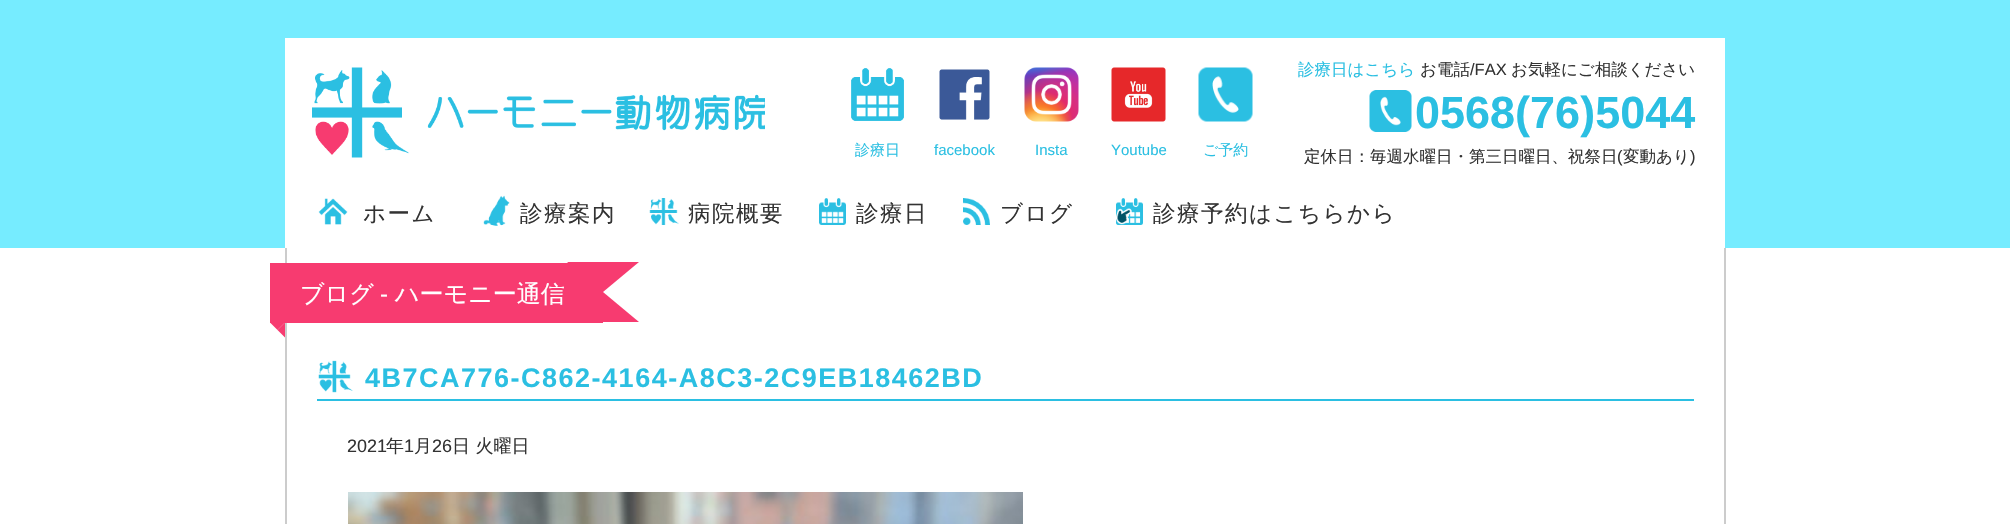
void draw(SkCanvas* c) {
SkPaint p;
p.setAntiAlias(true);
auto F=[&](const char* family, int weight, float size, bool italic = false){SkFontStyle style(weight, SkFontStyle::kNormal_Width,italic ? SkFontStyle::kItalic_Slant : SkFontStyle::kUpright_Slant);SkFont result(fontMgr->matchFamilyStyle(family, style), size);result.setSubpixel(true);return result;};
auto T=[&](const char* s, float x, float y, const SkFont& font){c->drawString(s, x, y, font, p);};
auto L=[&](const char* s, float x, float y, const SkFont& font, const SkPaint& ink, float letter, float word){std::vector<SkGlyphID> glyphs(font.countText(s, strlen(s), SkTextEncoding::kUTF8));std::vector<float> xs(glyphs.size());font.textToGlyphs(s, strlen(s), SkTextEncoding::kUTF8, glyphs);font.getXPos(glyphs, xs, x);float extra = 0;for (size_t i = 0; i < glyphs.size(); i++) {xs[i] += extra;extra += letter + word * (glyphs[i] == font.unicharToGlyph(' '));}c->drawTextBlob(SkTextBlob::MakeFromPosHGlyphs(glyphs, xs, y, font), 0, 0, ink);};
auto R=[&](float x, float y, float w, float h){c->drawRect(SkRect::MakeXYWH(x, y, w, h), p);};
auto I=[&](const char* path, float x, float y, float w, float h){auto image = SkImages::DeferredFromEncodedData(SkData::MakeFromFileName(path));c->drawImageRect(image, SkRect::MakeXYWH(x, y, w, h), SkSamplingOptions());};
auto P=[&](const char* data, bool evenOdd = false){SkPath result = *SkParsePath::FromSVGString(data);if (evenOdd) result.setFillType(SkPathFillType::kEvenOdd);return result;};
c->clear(0xffffffff);
p.setColor(0xff76ecff);
R(0,0,2010,248);
p.setColor(0xffffffff);
R(285,38,1440,210);
I("1.png",312,67,453,91);
auto f1 = F("WenQuanYi Zen Hei",500,16.5);
p.setColor(0xff2bbfe2);
T("診療日はこちら",1298,75,f1);
p.setColor(0xff333333);
T("お電話",1420,75,f1);
auto f2 = F("Liberation Sans",400,16.5);
T("/FAX",1470,75,f2);
T("お気軽にご相談ください",1511,75,f1);
I("2.png",1369,90,43,42);
auto f3 = F("Liberation Sans",700,45);
p.setColor(0xff2bbfe2);
T("0568(76)5044",1415,128,f3);
I("3.png",851,68,53,53);
auto f4 = F("WenQuanYi Zen Hei",500,15);
T("診療日",855,155,f4);
I("4.png",939,69,51,51);
auto f5 = F("Liberation Sans",400,15);
T("facebook",934,155,f5);
I("5.png",1024,67,55,55);
T("Insta",1035,155,f5);
I("6.png",1111,67,55,55);
T("Youtube",1111,155,f5);
I("7.png",1198,67,55,55);
T("ご予約",1203,155,f4);
p.setColor(0xff333333);
T("定休日：毎週水曜日・第三日曜日、祝祭日",1304,162,f1);
T("(",1617,162,f2);
T("変動あり",1623,162,f1);
T(")",1690,162,f2);
I("8.png",318,198,30,27);
auto f6 = F("WenQuanYi Zen Hei",500,22.5);
L("ホーム",363,221,f6,p,1.5,0);
I("9.png",483,195,27,31);
L("診療案内",520,221,f6,p,1.5,0);
I("10.png",649,198,30,27);
L("病院概要",688,221,f6,p,1.5,0);
I("11.png",819,198,27,27);
L("診療日",856,221,f6,p,1.5,0);
I("12.png",963,198,27,27);
L("ブログ",1000,221,f6,p,1.5,0);
I("13.png",1116,198,27,27);
L("診療予約はこちらから",1153,221,f6,p,1.5,0);
p.setColor(0xffcccccc);
R(285,248,2,276);
p.setColor(0xfff73b70);
R(270,263,297,60);
auto f7 = F("WenQuanYi Zen Hei",500,24);
p.setColor(0xffffffff);
T("ブログ",300,302,f7);
auto f8 = F("Liberation Sans",400,24);
T("-",380,302,f8);
T("ハーモニー通信",395,302,f7);
p.setColor(0xfff73b70);
c->drawPath(P("M567 262h72l-36 30z"),p);
c->drawPath(P("M639 322h-72l36-30z"),p);
R(567,263,36,60);
c->drawPath(P("M270 322.5h15l-7.5 7.5z"),p);
c->drawPath(P("M285 322.5v15l-7.5-7.5z"),p);
p.setColor(0xffcccccc);
R(1724,248,2,276);
I("14.png",318,360,35,33);
p.setColor(0xff2bbfe2);
R(317,399,1377,2);
auto f9 = F("Liberation Sans",700,27);
L("4B7CA776-C862-4164-A8C3-2C9EB18462BD",365,387,f9,p,1.5,0);
auto f10 = F("Liberation Sans",400,18);
p.setColor(0xff333333);
T("2021",347,452,f10);
auto f11 = F("WenQuanYi Zen Hei",500,18);
T("年",386,452,f11);
T("1",404,452,f10);
T("月",414,452,f11);
T("26",432,452,f10);
T("日 火曜日",452,452,f11);
I("15.png",348,492,675,32);
}
